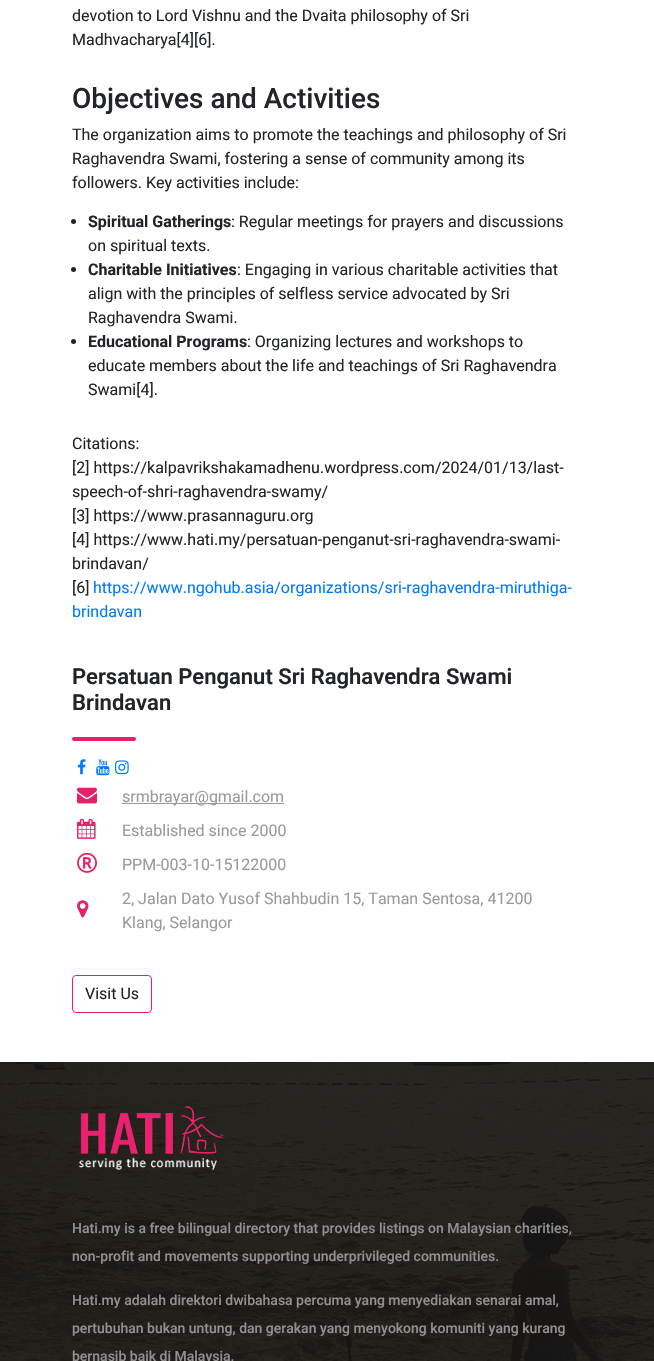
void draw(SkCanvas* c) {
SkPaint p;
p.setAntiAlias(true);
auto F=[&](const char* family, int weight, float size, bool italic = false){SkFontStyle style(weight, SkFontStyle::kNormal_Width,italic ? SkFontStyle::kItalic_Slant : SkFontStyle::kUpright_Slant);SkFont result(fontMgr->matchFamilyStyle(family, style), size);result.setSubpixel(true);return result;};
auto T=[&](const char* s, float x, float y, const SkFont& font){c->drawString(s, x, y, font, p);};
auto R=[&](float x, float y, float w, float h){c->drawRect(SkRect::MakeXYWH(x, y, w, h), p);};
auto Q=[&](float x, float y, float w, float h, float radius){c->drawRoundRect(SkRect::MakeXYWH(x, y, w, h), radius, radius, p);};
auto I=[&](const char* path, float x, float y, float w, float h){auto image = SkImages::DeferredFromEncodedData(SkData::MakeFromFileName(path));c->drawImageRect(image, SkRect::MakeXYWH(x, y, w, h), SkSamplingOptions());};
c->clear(0xffffffff);
auto f1 = F("Roboto",400,16);
p.setColor(0xff212529);
T("devotion to Lord Vishnu and the Dvaita philosophy of Sri",72,21,f1);
T("Madhvacharya[4][6].",72,45,f1);
auto f2 = F("Roboto",500,28);
T("Objectives and Activities",72,108,f2);
T("The organization aims to promote the teachings and philosophy of Sri",72,140,f1);
T("Raghavendra Swami, fostering a sense of community among its",72,164,f1);
T("followers. Key activities include:",72,188,f1);
c->drawCircle(73.5,221.5,2.5,p);
auto f3 = F("Roboto",700,16);
T("Spiritual Gatherings",88,227,f3);
T(": Regular meetings for prayers and discussions",231,227,f1);
T("on spiritual texts.",88,251,f1);
c->drawCircle(73.5,269.5,2.5,p);
T("Charitable Initiatives",88,275,f3);
T(": Engaging in various charitable activities that",237,275,f1);
T("align with the principles of selfless service advocated by Sri",88,299,f1);
T("Raghavendra Swami.",88,323,f1);
c->drawCircle(73.5,341.5,2.5,p);
T("Educational Programs",88,347,f3);
T(": Organizing lectures and workshops to",247,347,f1);
T("educate members about the life and teachings of Sri Raghavendra",88,371,f1);
T("Swami[4].",88,395,f1);
T("Citations:",72,449,f1);
T("[2] https://kalpavrikshakamadhenu.wordpress.com/2024/01/13/last-",72,473,f1);
T("speech-of-shri-raghavendra-swamy/",72,497,f1);
T("[3] https://www.prasannaguru.org",72,521,f1);
T("[4] https://www.hati.my/persatuan-penganut-sri-raghavendra-swami-",72,545,f1);
T("brindavan/",72,569,f1);
T("[6]",72,593,f1);
p.setColor(0xff007bff);
T("https://www.ngohub.asia/organizations/sri-raghavendra-miruthiga-",93,593,f1);
T("brindavan",72,617,f1);
auto f4 = F("Roboto",600,22);
p.setColor(0xff212529);
T("Persatuan Penganut Sri Raghavendra Swami",72,684,f4);
T("Brindavan",72,710,f4);
p.setColor(0xffe5216b);
Q(72,737,64,4,2);
I("1.png",77,759,9,16);
I("2.png",96,759,14,17);
I("3.png",115,760,14,15);
I("4.png",77,787,20,17);
p.setColor(0xff9b9a9a);
R(122,803,162,1);
T("srmbrayar@gmail.com",122,802,f1);
I("5.png",77,818,19,21);
T("Established since 2000",122,836,f1);
I("6.png",77,852,20,21);
T("PPM-003-10-15122000",122,870,f1);
I("7.png",77,900,12,18);
T("2, Jalan Dato Yusof Shahbudin 15, Taman Sentosa, 41200",122,904,f1);
T("Klang, Selangor",122,928,f1);
p.setStroke(true);
p.setStrokeWidth(1);
p.setColor(0xffe5216b);
c->drawRoundRect(SkRect::MakeXYWH(72.5,975.5,79,37),3.5,3.5,p);
p.setStroke(false);
p.setColor(0xff212529);
T("Visit Us",85,999,f1);
I("8.png",0,1062,654,299);
I("9.png",79,1106,147,64);
auto f5 = F("Roboto",500,14);
p.setColor(0xff929191);
T("Hati.my is a free bilingual directory that provides listings on Malaysian charities,",72,1233,f5);
T("non-profit and movements supporting underprivileged communities.",72,1261,f5);
T("Hati.my adalah direktori dwibahasa percuma yang menyediakan senarai amal,",72,1305,f5);
T("pertubuhan bukan untung, dan gerakan yang menyokong komuniti yang kurang",72,1333,f5);
T("bernasib baik di Malaysia.",72,1361,f5);
}
